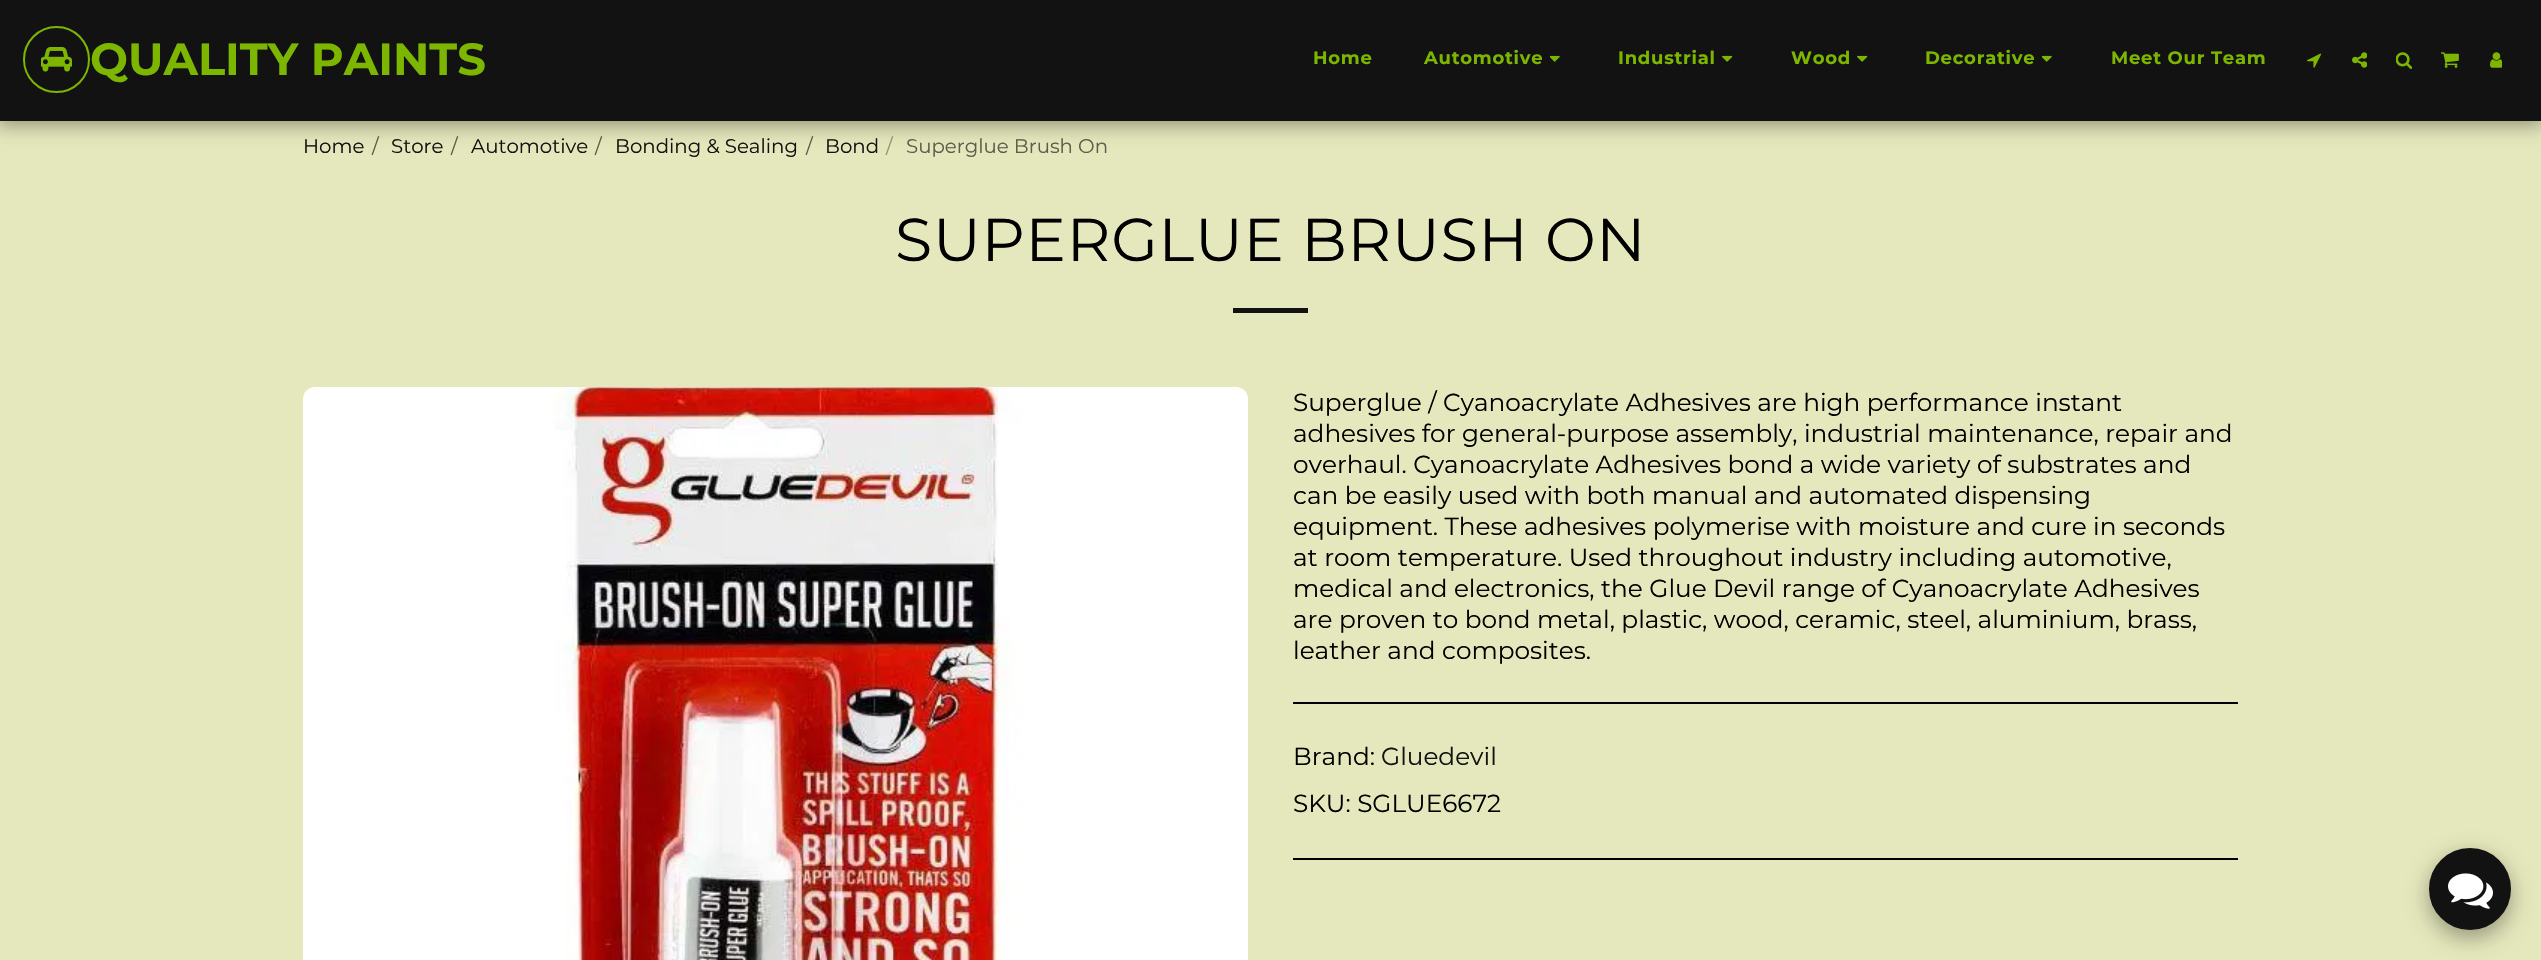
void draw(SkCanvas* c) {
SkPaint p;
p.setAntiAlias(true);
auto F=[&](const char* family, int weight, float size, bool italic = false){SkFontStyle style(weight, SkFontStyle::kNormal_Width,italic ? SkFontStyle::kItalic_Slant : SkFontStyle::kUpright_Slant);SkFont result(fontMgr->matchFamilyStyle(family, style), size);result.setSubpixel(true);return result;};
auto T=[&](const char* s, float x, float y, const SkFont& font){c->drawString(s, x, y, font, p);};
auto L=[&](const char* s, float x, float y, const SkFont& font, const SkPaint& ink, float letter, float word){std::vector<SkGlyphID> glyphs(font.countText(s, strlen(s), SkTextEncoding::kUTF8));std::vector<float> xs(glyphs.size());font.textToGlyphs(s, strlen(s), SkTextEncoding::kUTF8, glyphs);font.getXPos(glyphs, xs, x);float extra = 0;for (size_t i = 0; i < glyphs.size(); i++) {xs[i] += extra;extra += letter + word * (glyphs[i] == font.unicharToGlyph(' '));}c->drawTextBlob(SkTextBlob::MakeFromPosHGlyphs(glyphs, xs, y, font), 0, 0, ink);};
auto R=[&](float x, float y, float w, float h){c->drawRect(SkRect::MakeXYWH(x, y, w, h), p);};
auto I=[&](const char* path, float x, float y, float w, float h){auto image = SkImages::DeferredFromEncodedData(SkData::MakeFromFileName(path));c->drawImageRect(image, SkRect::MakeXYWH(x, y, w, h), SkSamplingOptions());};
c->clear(0xffe5e8bc);
p.setColor(0x59000000);
p.setMaskFilter(SkMaskFilter::MakeBlur(kNormal_SkBlurStyle, 9));
c->drawRect(SkRect::MakeXYWH(-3,0,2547,126),p);
p.setMaskFilter(nullptr);
p.setColor(0xff121212);
R(0,0,2541,121);
p.setStroke(true);
p.setStrokeWidth(2);
p.setColor(0xff7cb600);
c->drawCircle(56.5,59.5,32.5,p);
I("1.png",41,47,31,25);
auto f1 = F("Montserrat",700,45);
p.setStroke(false);
T("QUALITY PAINTS",90,75,f1);
auto f2 = F("Montserrat",700,18);
L("Home",1313,64,f2,p,.75,0);
L("Automotive",1424,64,f2,p,.75,0);
I("2.png",1550,55,10,7);
L("Industrial",1618,64,f2,p,.75,0);
I("3.png",1722,55,11,7);
L("Wood",1791,64,f2,p,.75,0);
I("3.png",1857,55,11,7);
L("Decorative",1925,64,f2,p,.75,0);
I("2.png",2042,55,10,7);
L("Meet Our Team",2111,64,f2,p,.75,0);
I("4.png",2307,53,15,15);
I("5.png",2352,52,15,16);
I("6.png",2396,52,16,17);
I("7.png",2441,52,18,16);
I("8.png",2490,52,12,16);
auto f3 = F("Montserrat",400,19.75);
p.setColor(0xff121212);
T("Home",303,153,f3);
p.setColor(0xff5c5d4b);
T("/",372,153,f3);
p.setColor(0xff121212);
T("Store",391,153,f3);
p.setColor(0xff5c5d4b);
T("/",451,153,f3);
p.setColor(0xff121212);
T("Automotive",471,153,f3);
p.setColor(0xff5c5d4b);
T("/",595,153,f3);
p.setColor(0xff121212);
T("Bonding & Sealing",615,153,f3);
p.setColor(0xff5c5d4b);
T("/",806,153,f3);
p.setColor(0xff121212);
T("Bond",825,153,f3);
p.setColor(0xff939478);
T("/",886,153,f3);
p.setColor(0xff5c5d4b);
T("Superglue Brush On",906,153,f3);
auto f4 = F("Montserrat",400,60.4);
p.setColor(0xff000000);
L("SUPERGLUE BRUSH ON",895,261,f4,p,.75,0);
p.setColor(0xff121212);
R(1233,308,75,5);
I("9.png",303,387,945,573);
auto f5 = F("Montserrat",400,24.75);
p.setColor(0xff000000);
T("Superglue / Cyanoacrylate Adhesives are high performance instant",1293,411,f5);
T("adhesives for general-purpose assembly, industrial maintenance, repair and",1293,442,f5);
T("overhaul. Cyanoacrylate Adhesives bond a wide variety of substrates and",1293,473,f5);
T("can be easily used with both manual and automated dispensing",1293,504,f5);
T("equipment. These adhesives polymerise with moisture and cure in seconds",1293,535,f5);
T("at room temperature. Used throughout industry including automotive,",1293,566,f5);
T("medical and electronics, the Glue Devil range of Cyanoacrylate Adhesives",1293,597,f5);
T("are proven to bond metal, plastic, wood, ceramic, steel, aluminium, brass,",1293,628,f5);
T("leather and composites.",1293,659,f5);
R(1293,702,945,2);
T("Brand:",1293,765,f5);
p.setColor(0xff121212);
T("Gluedevil",1381,765,f5);
p.setColor(0xff000000);
T("SKU: SGLUE6672",1293,812,f5);
R(1293,858,945,2);
p.setColor(0x59000000);
p.setMaskFilter(SkMaskFilter::MakeBlur(kNormal_SkBlurStyle, 11));
c->drawRoundRect(SkRect::MakeXYWH(2429,855,82,83),41,41,p);
p.setMaskFilter(nullptr);
p.setColor(0xff121212);
c->drawCircle(2470,889,40,p);
p.setStroke(true);
c->drawCircle(2470,889,40,p);
I("10.png",2448,873,45,36);
}
